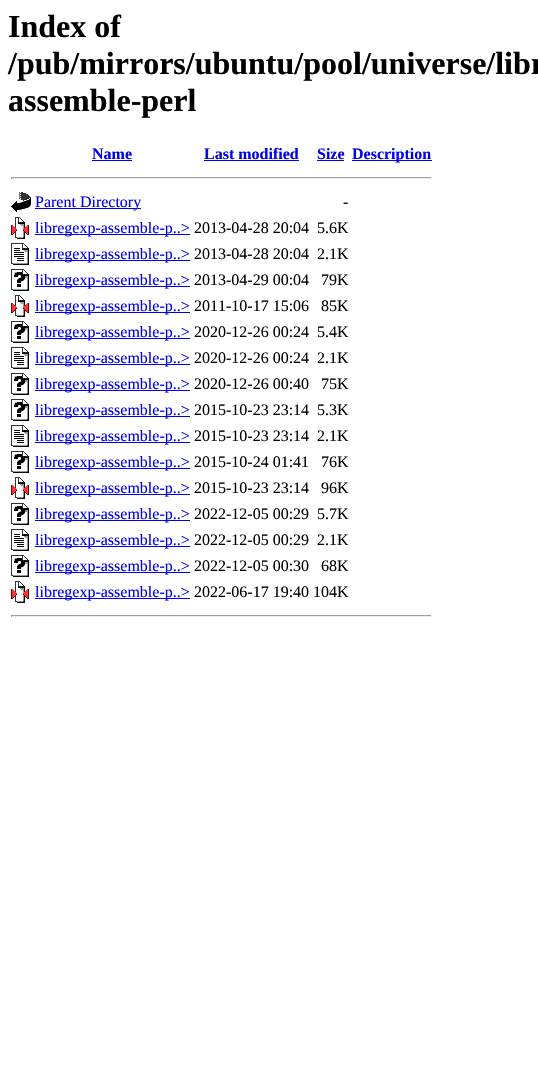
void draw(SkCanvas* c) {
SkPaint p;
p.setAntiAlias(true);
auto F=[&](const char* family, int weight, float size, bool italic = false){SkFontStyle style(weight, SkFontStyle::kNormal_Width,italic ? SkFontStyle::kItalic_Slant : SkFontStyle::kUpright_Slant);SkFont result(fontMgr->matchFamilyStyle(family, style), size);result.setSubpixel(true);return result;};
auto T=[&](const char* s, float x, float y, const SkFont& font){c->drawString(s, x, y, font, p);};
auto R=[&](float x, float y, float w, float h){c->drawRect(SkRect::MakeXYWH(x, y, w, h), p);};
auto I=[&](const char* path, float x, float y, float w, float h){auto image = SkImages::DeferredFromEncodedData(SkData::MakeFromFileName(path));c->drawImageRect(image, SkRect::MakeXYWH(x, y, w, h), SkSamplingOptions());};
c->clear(0xffffffff);
auto f1 = F("Liberation Serif",700,32);
p.setColor(0xff000000);
T("Index of",8,37,f1);
T("/pub/mirrors/ubuntu/pool/universe/libr",8,74,f1);
T("assemble-perl",8,111,f1);
auto f2 = F("Liberation Serif",700,16);
p.setColor(0xff0000ee);
T("Name",92,159,f2);
R(92,160,40,1);
T("Last modified",204,159,f2);
R(204,160,95,1);
T("Size",317,159,f2);
R(317,160,27,1);
R(352,160,80,1);
T("Description",352,159,f2);
p.setColor(0xff9f9f9f);
R(11,177,421,1);
p.setColor(0xffeeeeee);
R(431,177,1,2);
R(11,178,421,1);
p.setColor(0xff9f9f9f);
R(11,177,1,2);
I("1.png",11,192,20,20);
p.setColor(0xff0000ee);
R(35,208,106,1);
auto f3 = F("Liberation Serif",400,16);
T("Parent Directory",35,207,f3);
p.setColor(0xff000000);
T("-",343,207,f3);
I("2.png",11,217,18,22);
p.setColor(0xff0000ee);
R(35,234,155,1);
T("libregexp-assemble-p..>",35,233,f3);
p.setColor(0xff000000);
T("2013-04-28 20:04",194,233,f3);
T("5.6K",317,233,f3);
I("3.png",11,243,18,22);
p.setColor(0xff0000ee);
R(35,260,155,1);
T("libregexp-assemble-p..>",35,259,f3);
p.setColor(0xff000000);
T("2013-04-28 20:04",194,259,f3);
T("2.1K",317,259,f3);
I("4.png",11,269,18,22);
p.setColor(0xff0000ee);
R(35,286,155,1);
T("libregexp-assemble-p..>",35,285,f3);
p.setColor(0xff000000);
T("2013-04-29 00:04",194,285,f3);
T("79K",321,285,f3);
I("2.png",11,295,18,22);
p.setColor(0xff0000ee);
R(35,312,155,1);
T("libregexp-assemble-p..>",35,311,f3);
p.setColor(0xff000000);
T("2011-10-17 15:06",194,311,f3);
T("85K",321,311,f3);
I("4.png",11,321,18,22);
p.setColor(0xff0000ee);
R(35,338,155,1);
T("libregexp-assemble-p..>",35,337,f3);
p.setColor(0xff000000);
T("2020-12-26 00:24",194,337,f3);
T("5.4K",317,337,f3);
I("3.png",11,347,18,22);
p.setColor(0xff0000ee);
R(35,364,155,1);
T("libregexp-assemble-p..>",35,363,f3);
p.setColor(0xff000000);
T("2020-12-26 00:24",194,363,f3);
T("2.1K",317,363,f3);
I("4.png",11,373,18,22);
p.setColor(0xff0000ee);
R(35,390,155,1);
T("libregexp-assemble-p..>",35,389,f3);
p.setColor(0xff000000);
T("2020-12-26 00:40",194,389,f3);
T("75K",321,389,f3);
I("4.png",11,399,18,22);
p.setColor(0xff0000ee);
R(35,416,155,1);
T("libregexp-assemble-p..>",35,415,f3);
p.setColor(0xff000000);
T("2015-10-23 23:14",194,415,f3);
T("5.3K",317,415,f3);
I("3.png",11,425,18,22);
p.setColor(0xff0000ee);
R(35,442,155,1);
T("libregexp-assemble-p..>",35,441,f3);
p.setColor(0xff000000);
T("2015-10-23 23:14",194,441,f3);
T("2.1K",317,441,f3);
I("4.png",11,451,18,22);
p.setColor(0xff0000ee);
R(35,468,155,1);
T("libregexp-assemble-p..>",35,467,f3);
p.setColor(0xff000000);
T("2015-10-24 01:41",194,467,f3);
T("76K",321,467,f3);
I("2.png",11,477,18,22);
p.setColor(0xff0000ee);
R(35,494,155,1);
T("libregexp-assemble-p..>",35,493,f3);
p.setColor(0xff000000);
T("2015-10-23 23:14",194,493,f3);
T("96K",321,493,f3);
I("4.png",11,503,18,22);
p.setColor(0xff0000ee);
R(35,520,155,1);
T("libregexp-assemble-p..>",35,519,f3);
p.setColor(0xff000000);
T("2022-12-05 00:29",194,519,f3);
T("5.7K",317,519,f3);
I("3.png",11,529,18,22);
p.setColor(0xff0000ee);
R(35,546,155,1);
T("libregexp-assemble-p..>",35,545,f3);
p.setColor(0xff000000);
T("2022-12-05 00:29",194,545,f3);
T("2.1K",317,545,f3);
I("4.png",11,555,18,22);
p.setColor(0xff0000ee);
R(35,572,155,1);
T("libregexp-assemble-p..>",35,571,f3);
p.setColor(0xff000000);
T("2022-12-05 00:30",194,571,f3);
T("68K",321,571,f3);
I("2.png",11,581,18,22);
p.setColor(0xff0000ee);
R(35,598,155,1);
T("libregexp-assemble-p..>",35,597,f3);
p.setColor(0xff000000);
T("2022-06-17 19:40 104K",194,597,f3);
p.setColor(0xff9f9f9f);
R(11,615,421,1);
p.setColor(0xffeeeeee);
R(431,615,1,2);
R(11,616,421,1);
p.setColor(0xff9f9f9f);
R(11,615,1,2);
}
